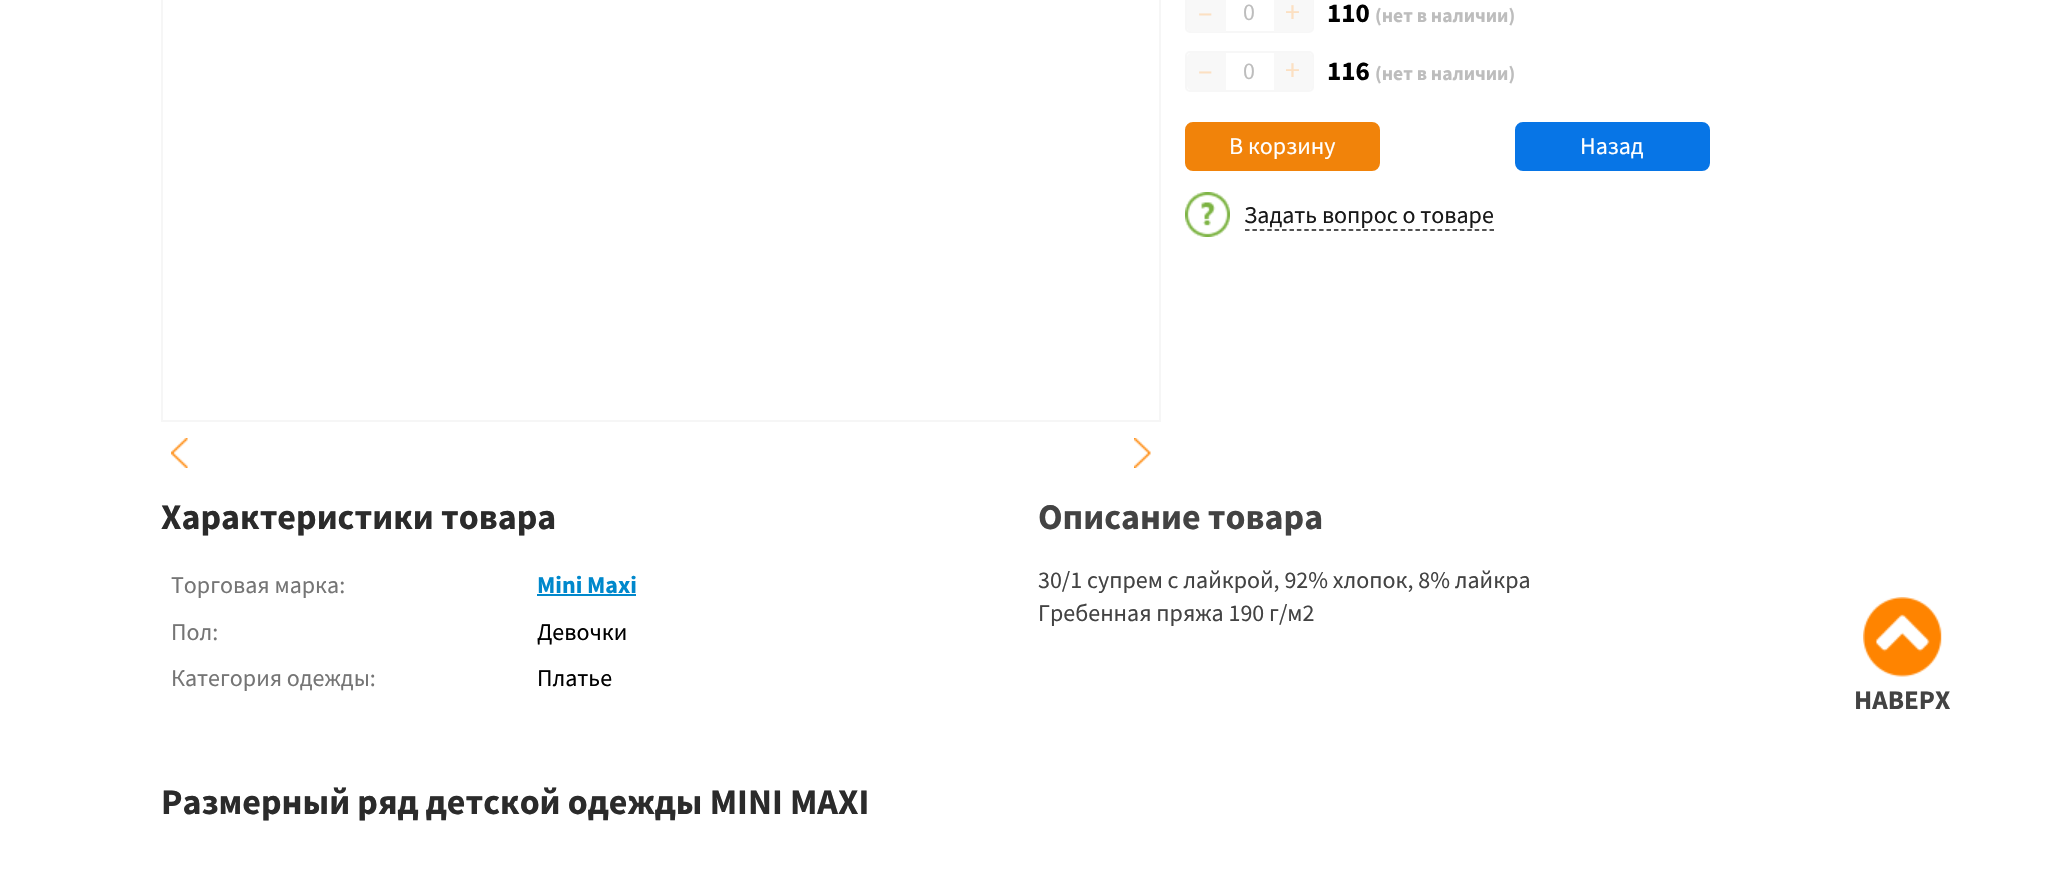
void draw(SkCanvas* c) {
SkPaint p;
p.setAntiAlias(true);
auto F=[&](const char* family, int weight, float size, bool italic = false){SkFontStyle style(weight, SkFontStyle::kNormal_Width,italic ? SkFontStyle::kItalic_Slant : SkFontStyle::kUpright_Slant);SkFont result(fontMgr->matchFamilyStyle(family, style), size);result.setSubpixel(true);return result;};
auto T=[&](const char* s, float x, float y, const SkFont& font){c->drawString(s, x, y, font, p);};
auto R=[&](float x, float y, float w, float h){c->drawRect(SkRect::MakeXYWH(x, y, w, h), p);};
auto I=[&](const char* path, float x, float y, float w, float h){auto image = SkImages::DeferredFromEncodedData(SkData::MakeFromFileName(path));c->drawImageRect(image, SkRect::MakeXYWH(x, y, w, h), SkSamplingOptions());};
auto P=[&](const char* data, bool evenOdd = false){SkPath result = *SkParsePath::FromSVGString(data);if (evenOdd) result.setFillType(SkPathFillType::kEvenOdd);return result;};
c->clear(0xffffffff);
p.setStroke(true);
p.setStrokeWidth(2);
p.setColor(0xfff6f6f6);
c->drawRect(SkRect::MakeXYWH(162,-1,998,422),p);
I("1.png",171,438,17,30);
I("2.png",1134,438,17,30);
p.setColor(0xfff7f7f7);
c->drawRoundRect(SkRect::MakeXYWH(1186,-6,127,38),4,4,p);
p.setStroke(false);
p.setColor(0xfff8f8f8);
c->drawPath(P("M1192-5h34v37h-34c-3 0-5-2-5-5v-27c0-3 2-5 5-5z"),p);
auto f1 = F("Source Sans Pro",400,30);
p.setColor(0xfffce0c2);
T("–",1198,22,f1);
auto f2 = F("Source Sans Pro",400,24);
p.setColor(0xffbdbdbd);
T("0",1243,20,f2);
p.setColor(0xfff8f8f8);
c->drawPath(P("M1274-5h34c3 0 5 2 5 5v27c0 3-2 5-5 5h-34z"),p);
p.setColor(0xfffce0c2);
T("+",1285,22,f1);
auto f3 = F("Source Sans Pro",700,27);
p.setColor(0xff000000);
T("110",1327,22,f3);
auto f4 = F("Source Sans Pro",700,19.5);
p.setColor(0xffbdbdbd);
T("(нет в наличии)",1375,22,f4);
p.setStroke(true);
p.setColor(0xfff7f7f7);
c->drawRoundRect(SkRect::MakeXYWH(1186,52,127,39),4,4,p);
p.setStroke(false);
p.setColor(0xfff8f8f8);
c->drawPath(P("M1192 53h34v37h-34c-3 0-5-2-5-5v-27c0-3 2-5 5-5z"),p);
p.setColor(0xfffce0c2);
T("–",1198,80,f1);
p.setColor(0xffbdbdbd);
T("0",1243,79,f2);
p.setColor(0xfff8f8f8);
c->drawPath(P("M1274 53h34c3 0 5 2 5 5v27c0 3-2 5-5 5h-34z"),p);
p.setColor(0xfffce0c2);
T("+",1285,80,f1);
p.setColor(0xff000000);
T("116",1327,80,f3);
p.setColor(0xffbdbdbd);
T("(нет в наличии)",1375,80,f4);
p.setColor(0xfff1830a);
c->drawRoundRect(SkRect::MakeXYWH(1186,123,193,47),7,7,p);
p.setStroke(true);
c->drawRoundRect(SkRect::MakeXYWH(1186,123,193,47),7,7,p);
p.setStroke(false);
p.setColor(0xffffffff);
T("В корзину",1229,154,f2);
p.setColor(0xff0775e6);
c->drawRoundRect(SkRect::MakeXYWH(1516,123,193,47),7,7,p);
p.setStroke(true);
c->drawRoundRect(SkRect::MakeXYWH(1516,123,193,47),7,7,p);
p.setStroke(false);
p.setColor(0xffffffff);
T("Назад",1580,154,f2);
I("3.png",1185,192,45,45);
p.setColor(0xff181818);
T("Задать вопрос о товаре",1244,223,f2);
p.setStroke(true);
p.setStrokeWidth(1.5);
p.setPathEffect(SkDashPathEffect::Make({{4.5f,2.91f}}, 0));
c->drawPath(P("M1245 230h249"),p);
p.setPathEffect(nullptr);
auto f5 = F("Source Sans Pro",700,36);
p.setStroke(false);
p.setColor(0xff2b2b2b);
T("Характеристики товара",161,529,f5);
p.setColor(0xff757575);
T("Торговая марка:",171,593,f2);
auto f6 = F("Source Sans Pro",700,24);
p.setColor(0xff0088cc);
T("Mini Maxi",537,593,f6);
R(537,594,99,2);
p.setColor(0xff757575);
T("Пол:",171,640,f2);
p.setColor(0xff000000);
T("Девочки",537,640,f2);
p.setColor(0xff757575);
T("Категория одежды:",171,686,f2);
p.setColor(0xff000000);
T("Платье",537,686,f2);
p.setColor(0xff434343);
T("Описание товара",1038,529,f5);
T("30/1 супрем с лайкрой, 92% хлопок, 8% лайкра",1038,588,f2);
T("Гребенная пряжа 190 г/м2",1038,621,f2);
I("4.png",1863,597,79,80);
T("НАВЕРХ",1854,709,f3);
p.setColor(0xff2b2b2b);
T("Размерный ряд детской одежды MINI MAXI",161,814,f5);
}
